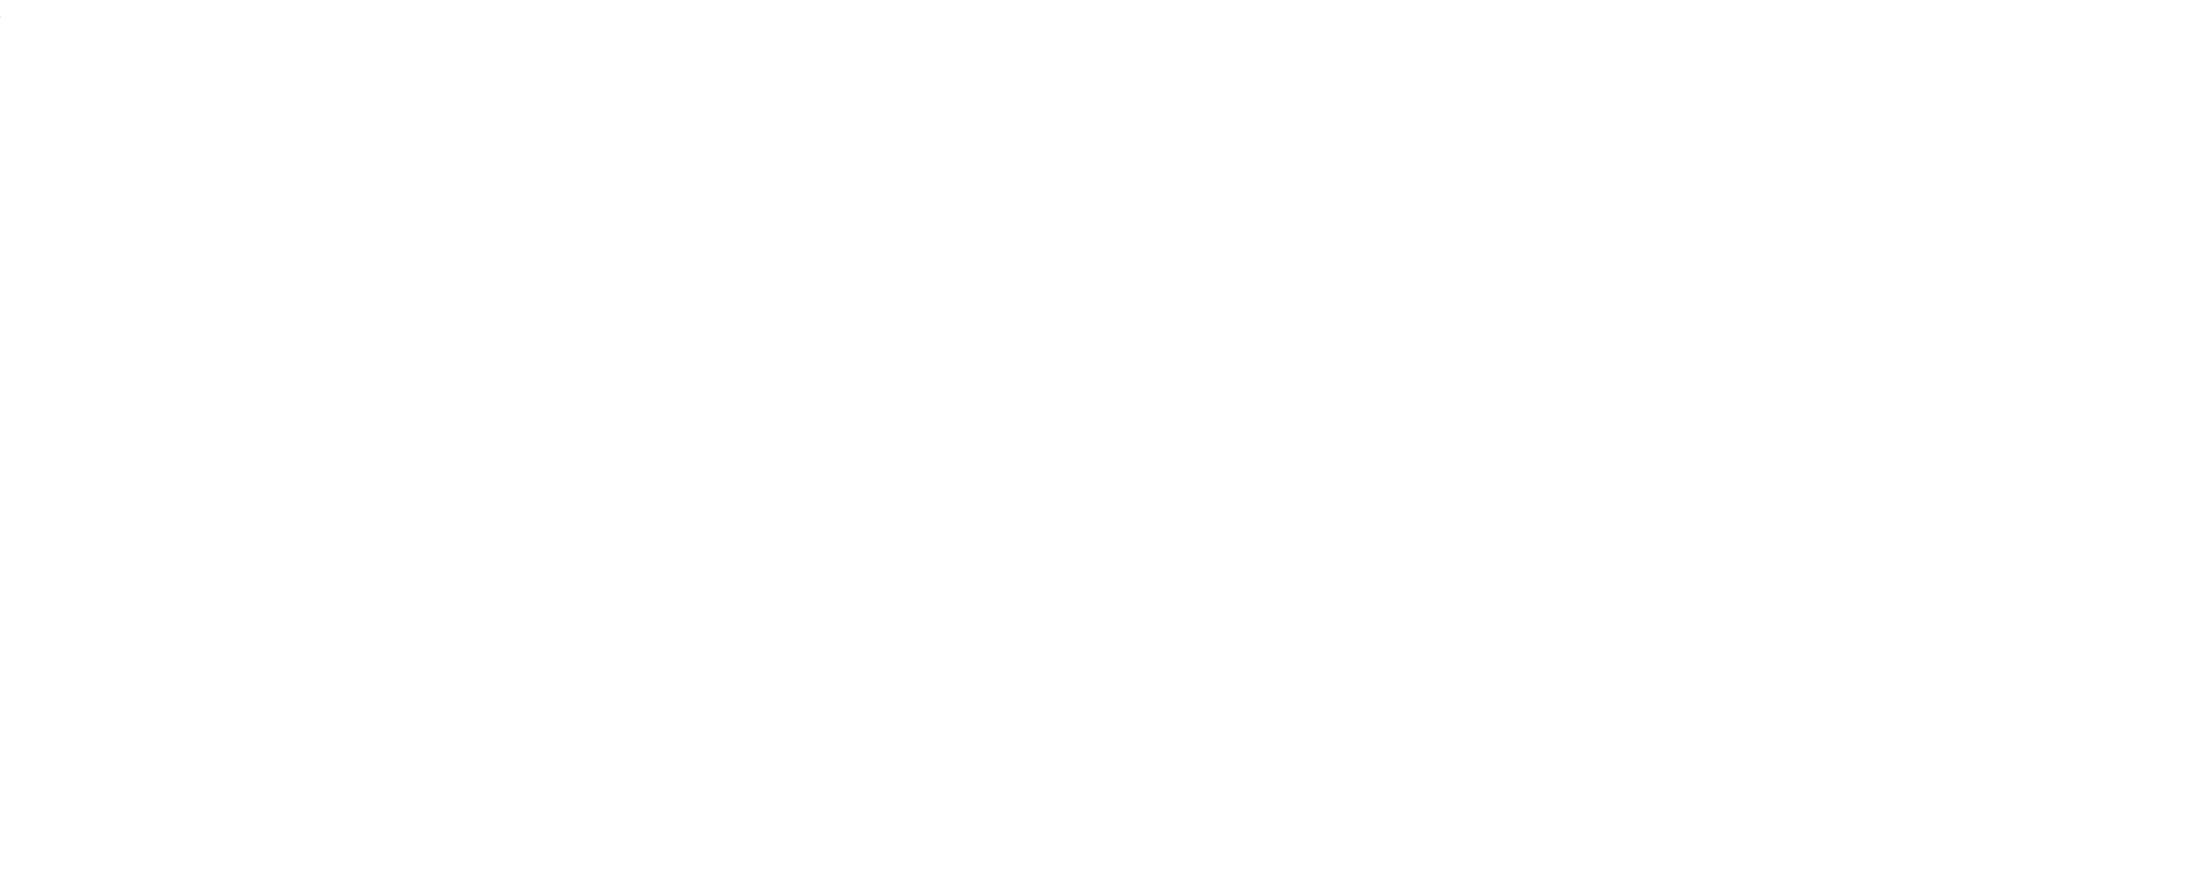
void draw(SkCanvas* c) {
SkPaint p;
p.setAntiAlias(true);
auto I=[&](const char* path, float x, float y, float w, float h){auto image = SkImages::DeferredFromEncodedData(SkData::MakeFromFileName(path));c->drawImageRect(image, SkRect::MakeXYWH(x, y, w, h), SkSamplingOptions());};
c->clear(0xffffffff);
I("1.png",0,16,2,2);
}
